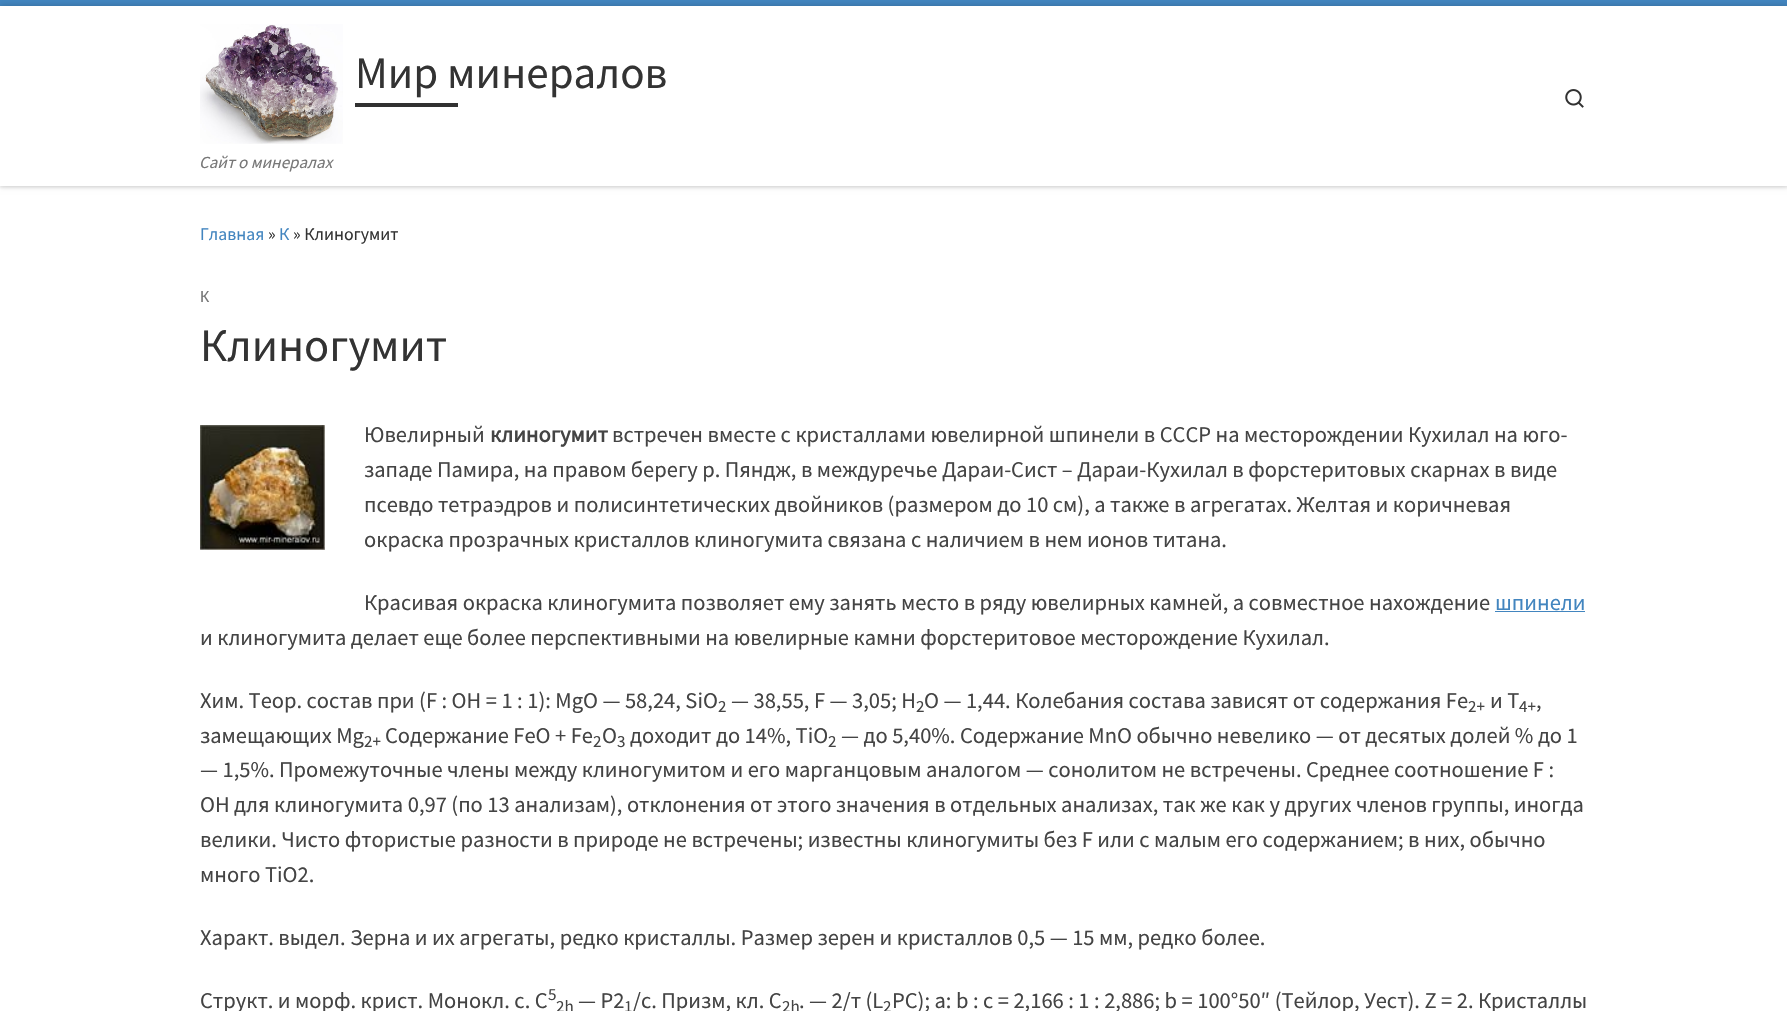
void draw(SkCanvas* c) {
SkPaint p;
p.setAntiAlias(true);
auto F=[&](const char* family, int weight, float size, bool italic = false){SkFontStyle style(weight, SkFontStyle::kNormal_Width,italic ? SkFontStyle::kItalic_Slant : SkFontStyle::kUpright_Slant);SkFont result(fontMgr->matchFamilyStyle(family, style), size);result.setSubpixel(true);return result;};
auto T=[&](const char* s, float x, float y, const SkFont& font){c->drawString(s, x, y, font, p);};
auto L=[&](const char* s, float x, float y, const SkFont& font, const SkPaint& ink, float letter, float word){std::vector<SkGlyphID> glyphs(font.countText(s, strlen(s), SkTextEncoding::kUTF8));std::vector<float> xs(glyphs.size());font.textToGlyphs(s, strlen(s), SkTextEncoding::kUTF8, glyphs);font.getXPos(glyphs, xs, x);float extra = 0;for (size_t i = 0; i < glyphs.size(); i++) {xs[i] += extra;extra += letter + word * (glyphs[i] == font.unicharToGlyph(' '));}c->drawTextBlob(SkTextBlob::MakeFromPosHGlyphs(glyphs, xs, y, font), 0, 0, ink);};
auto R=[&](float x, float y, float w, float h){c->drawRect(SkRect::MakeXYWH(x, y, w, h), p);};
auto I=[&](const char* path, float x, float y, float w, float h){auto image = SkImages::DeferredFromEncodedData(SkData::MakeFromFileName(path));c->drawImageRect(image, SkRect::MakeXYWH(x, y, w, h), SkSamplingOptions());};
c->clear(0xffffffff);
p.setColor(0x14666666);
p.setMaskFilter(SkMaskFilter::MakeBlur(kNormal_SkBlurStyle, 1));
c->drawRect(SkRect::MakeXYWH(0,3,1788,185),p);
p.setMaskFilter(nullptr);
p.setColor(0xff4285bf);
R(0,0,1787,6);
p.setColor(0x33000000);
p.setMaskFilter(SkMaskFilter::MakeBlur(kNormal_SkBlurStyle, 3));
c->drawRect(SkRect::MakeXYWH(0,6,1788,180),p);
p.setMaskFilter(nullptr);
p.setColor(0xffffffff);
R(0,6,1787,180);
I("1.png",200,24,143,120);
auto f1 = F("Source Sans Pro",400,45);
p.setColor(0xff333333);
T("Мир минералов",355,88,f1);
p.setColor(0xff313131);
R(355,103,103,4);
auto f2 = F("Source Sans Pro",400,17,true);
p.setColor(0xff777777);
T("Сайт о минералах",199,168,f2);
I("2.png",1565,89,19,19);
auto f3 = F("Source Sans Pro",400,17.75);
p.setColor(0xff4285bf);
T("Главная",200,240,f3);
p.setColor(0xff333333);
T("»",268,240,f3);
p.setColor(0xff4285bf);
T("К",279,240,f3);
p.setColor(0xff333333);
T("» Клиногумит",293,240,f3);
auto f4 = F("Liberation Sans",400,16);
p.setColor(0xff777777);
L("К",200,302,f4,p,2,0);
auto f5 = F("Source Sans Pro",400,46.5);
p.setColor(0xff333333);
T("Клиногумит",200,361,f5);
I("3.png",200,425,125,125);
auto f6 = F("Source Sans Pro",400,22.5);
p.setColor(0xff444444);
T("Ювелирный",364,442,f6);
auto f7 = F("Source Sans Pro",700,22.5);
T("клиногумит",490,442,f7);
T("встречен вместе с кристаллами ювелирной шпинели в СССР на месторождении Кухилал на юго-",612,442,f6);
T("западе Памира, на правом берегу р. Пяндж, в междуречье Дараи-Сист – Дараи-Кухилал в форстеритовых скарнах в виде",364,477,f6);
T("псевдо тетраэдров и полисинтетических двойников (размером до 10 см), а также в агрегатах. Желтая и коричневая",364,512,f6);
T("окраска прозрачных кристаллов клиногумита связана с наличием в нем ионов титана.",364,547,f6);
T("Красивая окраска клиногумита позволяет ему занять место в ряду ювелирных камней, а совместное нахождение",364,610,f6);
p.setColor(0xff4285bf);
T("шпинели",1495,610,f6);
R(1495,611,90,1);
p.setColor(0xff444444);
T("и клиногумита делает еще более перспективными на ювелирные камни форстеритовое месторождение Кухилал.",200,645,f6);
T("Хим. Теор. состав при (F : ОН = 1 : 1): MgO — 58,24, SiO",200,708,f6);
auto f8 = F("Source Sans Pro",400,17);
T("2",718,712,f8);
T("— 38,55, F — 3,05; Н",731,708,f6);
T("2",916,712,f8);
T("О — 1,44. Колебания состава зависят от содержания Fe",924,708,f6);
T("2+",1468,712,f8);
T("и Т",1490,708,f6);
T("4+",1519,712,f8);
T(",",1536,708,f6);
T("замещающих Mg",200,743,f6);
T("2+",364,747,f8);
T("Содержание FeO + Fe",385,743,f6);
T("2",593,747,f8);
T("О",602,743,f6);
T("3",617,747,f8);
T("доходит до 14%, TiO",630,743,f6);
T("2",828,747,f8);
T("— до 5,40%. Содержание МnО обычно невелико — от десятых долей % до 1",841,743,f6);
T("— 1,5%. Промежуточные члены между клиногумитом и его марганцовым аналогом — сонолитом не встречены. Среднее соотношение F :",200,777,f6);
T("ОН для клиногумита 0,97 (по 13 анализам), отклонения от этого значения в отдельных анализах, так же как у других членов группы, иногда",200,812,f6);
T("велики. Чисто фтористые разности в природе не встречены; известны клиногумиты без F или с малым его содержанием; в них, обычно",200,847,f6);
T("много TiO2.",200,882,f6);
T("Характ. выдел. Зерна и их агрегаты, редко кристаллы. Размер зерен и кристаллов 0,5 — 15 мм, редко более.",200,945,f6);
T("Структ. и морф. крист. Монокл. с. С",200,1008,f6);
T("5",548,1000,f8);
T("2h",556,1012,f8);
T("— Р2",578,1008,f6);
T("1",624,1012,f8);
T("/с. Призм, кл. С",633,1008,f6);
T("2h",782,1012,f8);
T(". — 2/т (L",799,1008,f6);
T("2",883,1012,f8);
T("PC); а: b : с = 2,166 : 1 : 2,886; b = 100°50″ (Тейлор, Уест). Z = 2. Кристаллы",892,1008,f6);
}
